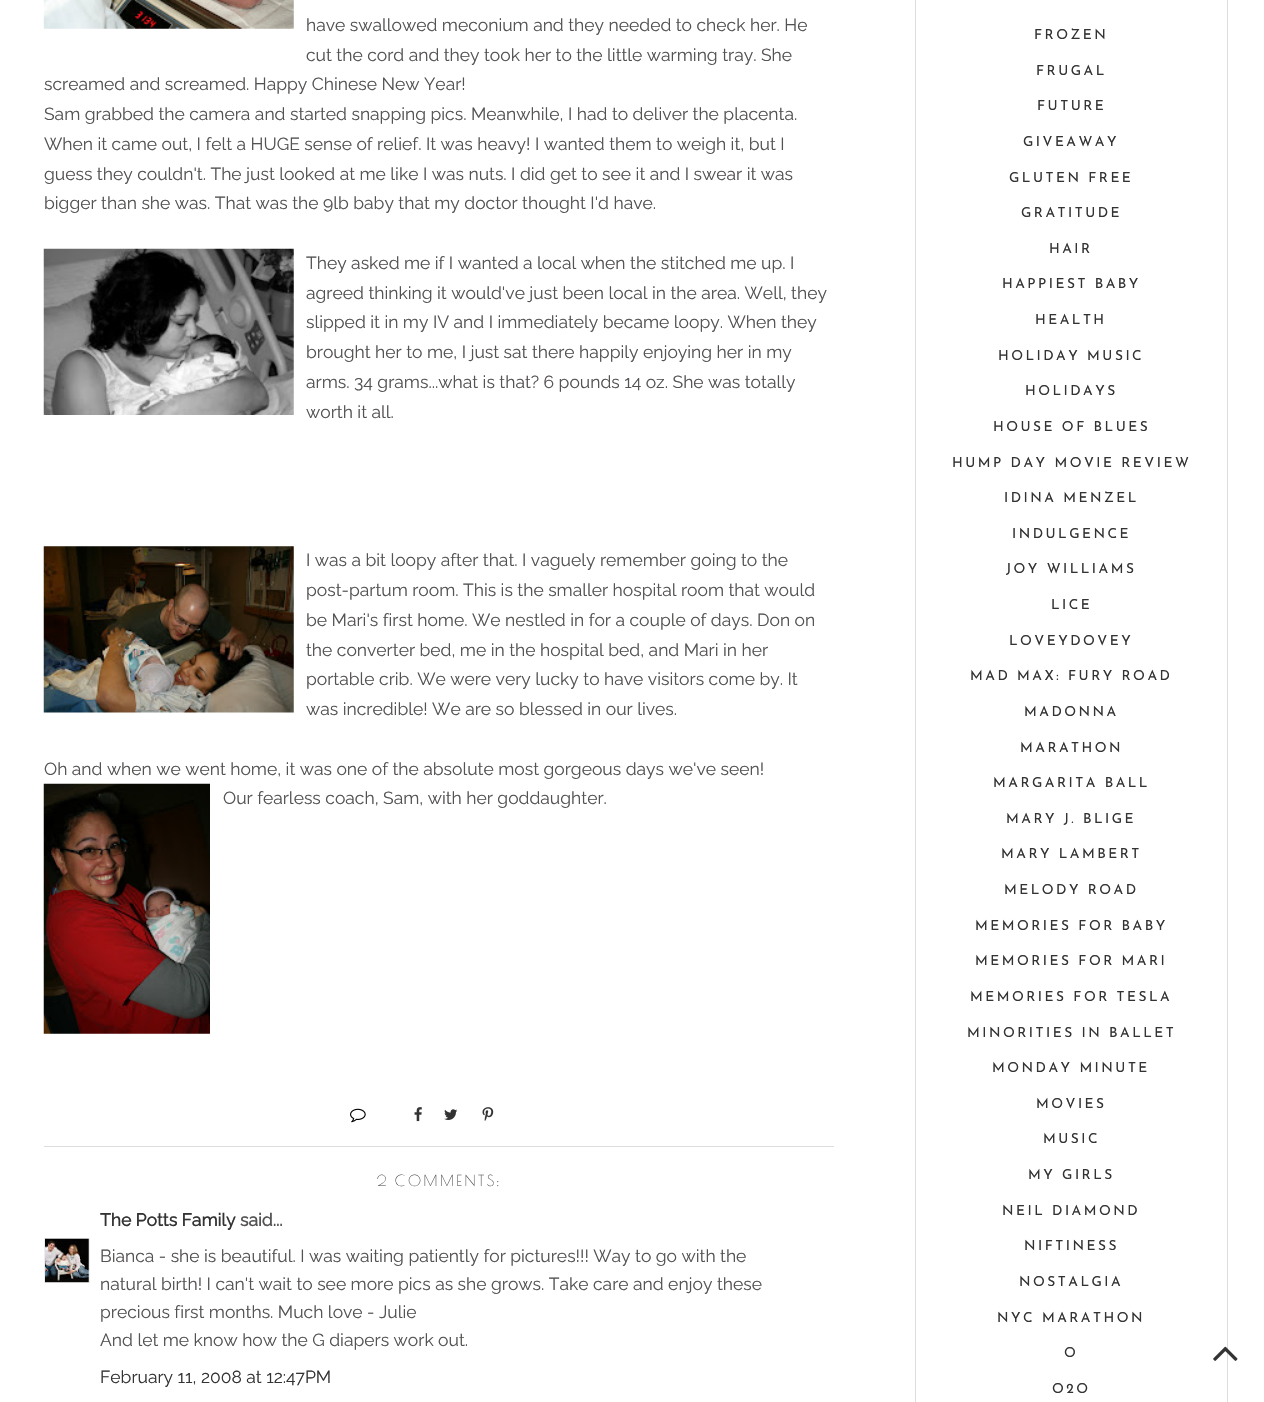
void draw(SkCanvas* c) {
SkPaint p;
p.setAntiAlias(true);
auto F=[&](const char* family, int weight, float size, bool italic = false){SkFontStyle style(weight, SkFontStyle::kNormal_Width,italic ? SkFontStyle::kItalic_Slant : SkFontStyle::kUpright_Slant);SkFont result(fontMgr->matchFamilyStyle(family, style), size);result.setSubpixel(true);return result;};
auto T=[&](const char* s, float x, float y, const SkFont& font){c->drawString(s, x, y, font, p);};
auto L=[&](const char* s, float x, float y, const SkFont& font, const SkPaint& ink, float letter, float word){std::vector<SkGlyphID> glyphs(font.countText(s, strlen(s), SkTextEncoding::kUTF8));std::vector<float> xs(glyphs.size());font.textToGlyphs(s, strlen(s), SkTextEncoding::kUTF8, glyphs);font.getXPos(glyphs, xs, x);float extra = 0;for (size_t i = 0; i < glyphs.size(); i++) {xs[i] += extra;extra += letter + word * (glyphs[i] == font.unicharToGlyph(' '));}c->drawTextBlob(SkTextBlob::MakeFromPosHGlyphs(glyphs, xs, y, font), 0, 0, ink);};
auto R=[&](float x, float y, float w, float h){c->drawRect(SkRect::MakeXYWH(x, y, w, h), p);};
auto I=[&](const char* path, float x, float y, float w, float h){auto image = SkImages::DeferredFromEncodedData(SkData::MakeFromFileName(path));c->drawImageRect(image, SkRect::MakeXYWH(x, y, w, h), SkSamplingOptions());};
c->clear(0xffffffff);
I("1.png",43,0,251,29);
auto f1 = F("Raleway",100,17.5);
p.setColor(0xff555252);
T("have swallowed meconium and they needed to check her. He",306,31,f1);
T("cut the cord and they took her to the little warming tray. She",306,61,f1);
T("screamed and screamed. Happy Chinese New Year!",44,90,f1);
T("Sam grabbed the camera and started snapping pics. Meanwhile, I had to deliver the placenta.",44,120,f1);
T("When it came out, I felt a HUGE sense of relief. It was heavy! I wanted them to weigh it, but I",44,150,f1);
T("guess they couldn't. The just looked at me like I was nuts. I did get to see it and I swear it was",44,180,f1);
T("bigger than she was. That was the 9lb baby that my doctor thought I'd have.",44,209,f1);
I("2.png",43,248,251,167);
T("They asked me if I wanted a local when the stitched me up. I",306,269,f1);
T("agreed thinking it would've just been local in the area. Well, they",306,299,f1);
T("slipped it in my IV and I immediately became loopy. When they",306,328,f1);
T("brought her to me, I just sat there happily enjoying her in my",306,358,f1);
T("arms. 34 grams...what is that? 6 pounds 14 oz. She was totally",306,388,f1);
T("worth it all.",306,418,f1);
I("3.png",43,546,251,167);
T("I was a bit loopy after that. I vaguely remember going to the",306,566,f1);
T("post-partum room. This is the smaller hospital room that would",306,596,f1);
T("be Mari's first home. We nestled in for a couple of days. Don on",306,626,f1);
T("the converter bed, me in the hospital bed, and Mari in her",306,656,f1);
T("portable crib. We were very lucky to have visitors come by. It",306,685,f1);
T("was incredible! We are so blessed in our lives.",306,715,f1);
T("Oh and when we went home, it was one of the absolute most gorgeous days we've seen!",44,775,f1);
I("4.png",43,783,167,251);
T("Our fearless coach, Sam, with her goddaughter.",223,804,f1);
p.setColor(0xffdddddd);
R(44,1146,790,1);
I("5.png",350,1108,16,15);
I("6.png",414,1107,8,15);
I("7.png",444,1109,14,11);
I("8.png",482,1107,12,14);
auto f2 = F("Poiret One",400,15);
p.setColor(0xff555252);
L("2 COMMENTS:",377,1186,f2,p,2.5,0);
auto f3 = F("Raleway",700,17.5);
p.setColor(0xff333333);
T("The Potts Family",100,1226,f3);
p.setColor(0xff555252);
T("said...",240,1226,f3);
c->save();
c->clipRect(SkRect::MakeXYWH(44,1238,46,45));
p.setStroke(true);
p.setStrokeWidth(1);
p.setColor(0xffeeeeee);
c->drawRect(SkRect::MakeXYWH(44.5,1238.5,45,45),p);
c->restore();
I("9.png",45,1238,44,45);
p.setStroke(false);
p.setColor(0xff555252);
T("Bianca - she is beautiful. I was waiting patiently for pictures!!! Way to go with the",100,1262,f1);
T("natural birth! I can't wait to see more pics as she grows. Take care and enjoy these",100,1290,f1);
T("precious first months. Much love - Julie",100,1318,f1);
T("And let me know how the G diapers work out.",100,1346,f1);
p.setColor(0xff333333);
T("February 11, 2008 at 12:47 PM",100,1383,f1);
p.setStroke(true);
p.setColor(0xffdddddd);
c->drawRect(SkRect::MakeXYWH(915.5,-.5,312,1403),p);
auto f4 = F("Josefin Sans",100,13.75);
p.setStroke(false);
p.setColor(0xff333333);
L("FROZEN",1034,39,f4,p,2.5,0);
L("FRUGAL",1036,75,f4,p,2.5,0);
L("FUTURE",1037,110,f4,p,2.5,0);
L("GIVEAWAY",1023,146,f4,p,2.5,0);
L("GLUTEN FREE",1009,182,f4,p,2.5,0);
L("GRATITUDE",1021,217,f4,p,2.5,0);
L("HAIR",1049,253,f4,p,2.5,0);
L("HAPPIEST BABY",1002,288,f4,p,2.5,0);
L("HEALTH",1035,324,f4,p,2.5,0);
L("HOLIDAY MUSIC",998,360,f4,p,2.5,0);
L("HOLIDAYS",1025,395,f4,p,2.5,0);
L("HOUSE OF BLUES",993,431,f4,p,2.5,0);
L("HUMP DAY MOVIE REVIEW",952,467,f4,p,2.5,0);
L("IDINA MENZEL",1004,502,f4,p,2.5,0);
L("INDULGENCE",1012,538,f4,p,2.5,0);
L("JOY WILLIAMS",1006,573,f4,p,2.5,0);
L("LICE",1051,609,f4,p,2.5,0);
L("LOVEYDOVEY",1009,645,f4,p,2.5,0);
L("MAD MAX: FURY ROAD",970,680,f4,p,2.5,0);
L("MADONNA",1024,716,f4,p,2.5,0);
L("MARATHON",1020,752,f4,p,2.5,0);
L("MARGARITA BALL",993,787,f4,p,2.5,0);
L("MARY J. BLIGE",1006,823,f4,p,2.5,0);
L("MARY LAMBERT",1001,858,f4,p,2.5,0);
L("MELODY ROAD",1004,894,f4,p,2.5,0);
L("MEMORIES FOR BABY",975,930,f4,p,2.5,0);
L("MEMORIES FOR MARI",975,965,f4,p,2.5,0);
L("MEMORIES FOR TESLA",970,1001,f4,p,2.5,0);
L("MINORITIES IN BALLET",967,1037,f4,p,2.5,0);
L("MONDAY MINUTE",992,1072,f4,p,2.5,0);
L("MOVIES",1036,1108,f4,p,2.5,0);
L("MUSIC",1043,1143,f4,p,2.5,0);
L("MY GIRLS",1028,1179,f4,p,2.5,0);
L("NEIL DIAMOND",1002,1215,f4,p,2.5,0);
L("NIFTINESS",1024,1250,f4,p,2.5,0);
L("NOSTALGIA",1019,1286,f4,p,2.5,0);
L("NYC MARATHON",997,1322,f4,p,2.5,0);
L("O",1064,1357,f4,p,2.5,0);
L("O2O",1052,1393,f4,p,2.5,0);
I("10.png",1213,1346,25,15);
}
